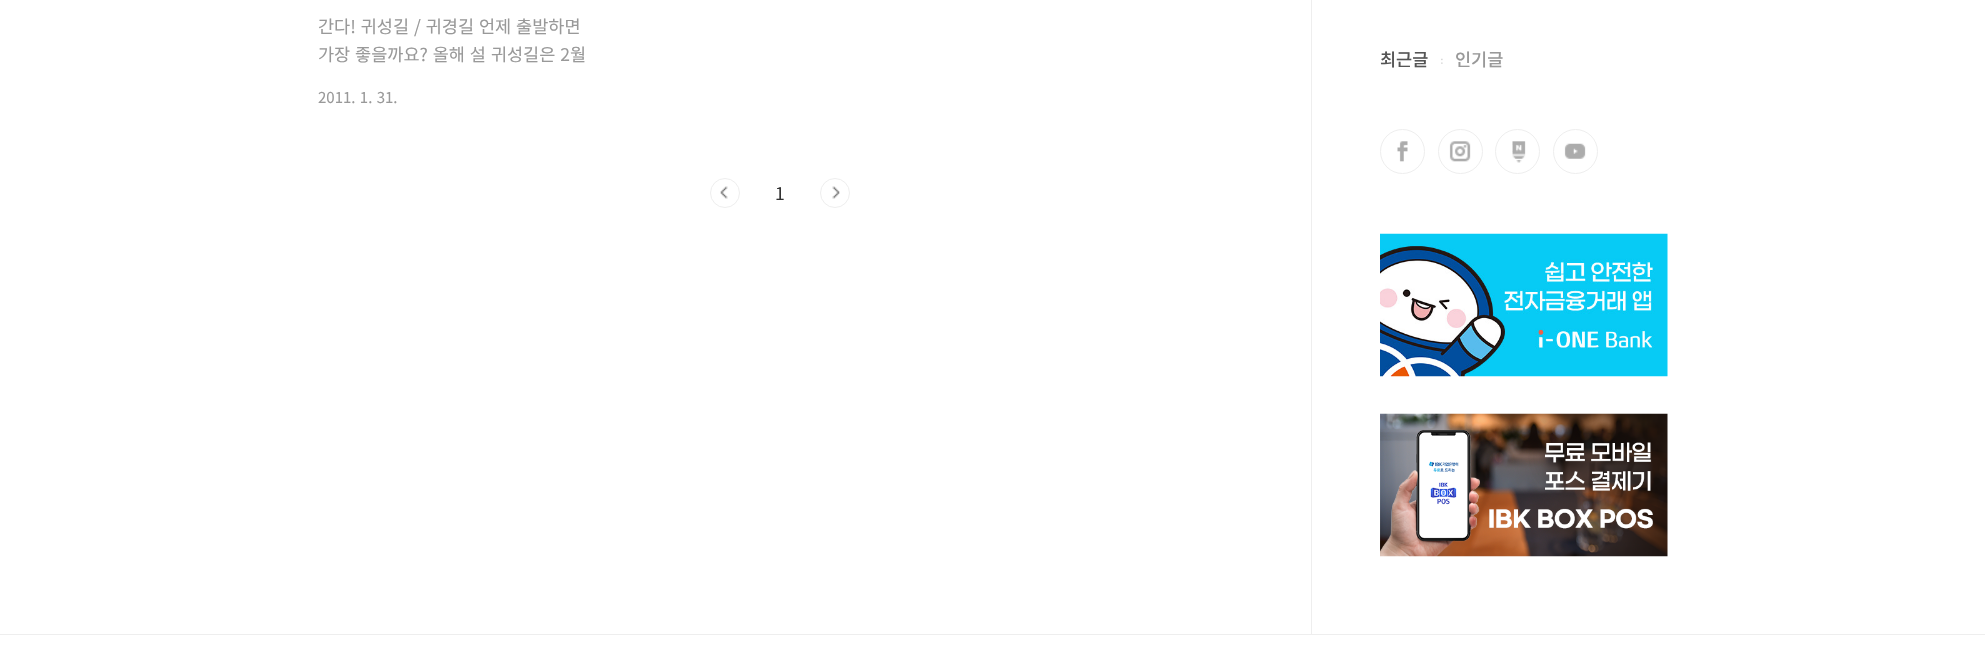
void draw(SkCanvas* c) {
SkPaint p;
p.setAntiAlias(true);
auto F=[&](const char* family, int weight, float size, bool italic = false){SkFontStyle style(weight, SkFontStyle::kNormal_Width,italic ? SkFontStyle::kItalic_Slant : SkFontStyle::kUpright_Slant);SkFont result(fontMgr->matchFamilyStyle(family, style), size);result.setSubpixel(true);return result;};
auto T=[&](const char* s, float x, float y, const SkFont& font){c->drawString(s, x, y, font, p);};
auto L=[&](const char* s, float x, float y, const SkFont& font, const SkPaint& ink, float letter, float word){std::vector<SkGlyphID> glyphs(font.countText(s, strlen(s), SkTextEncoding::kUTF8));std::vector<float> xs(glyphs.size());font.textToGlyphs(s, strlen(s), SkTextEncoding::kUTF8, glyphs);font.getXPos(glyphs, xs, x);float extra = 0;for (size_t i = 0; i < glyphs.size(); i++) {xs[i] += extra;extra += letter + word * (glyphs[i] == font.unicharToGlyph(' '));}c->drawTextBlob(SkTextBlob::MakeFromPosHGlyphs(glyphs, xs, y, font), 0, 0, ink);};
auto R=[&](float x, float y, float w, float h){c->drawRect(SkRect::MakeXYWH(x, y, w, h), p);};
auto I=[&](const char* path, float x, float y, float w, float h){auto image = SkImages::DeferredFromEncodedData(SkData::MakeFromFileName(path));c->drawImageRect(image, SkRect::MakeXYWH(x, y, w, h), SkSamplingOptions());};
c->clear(0xffffffff);
auto f1 = F("Noto Sans KR",400,17.5);
p.setColor(0xff999999);
L("간다! 귀성길 / 귀경길 언제 출발하면",318,33,f1,p,0,1);
L("가장 좋을까요? 올해 설 귀성길은 2월",318,61,f1,p,0,1);
auto f2 = F("Noto Sans KR",400,15);
L("2011. 1. 31.",318,103,f2,p,0,1);
I("1.png",720,186,8,13);
p.setStroke(true);
p.setStrokeWidth(1);
p.setColor(0xffeeeeee);
c->drawCircle(725,193,14.5,p);
p.setStroke(false);
p.setColor(0xff333333);
T("1",775,200,f1);
I("2.png",832,186,8,13);
p.setStroke(true);
p.setColor(0xffeeeeee);
c->drawCircle(835,193,14.5,p);
p.setStroke(false);
R(1311,0,1,634);
auto f3 = F("Noto Sans KR",500,17.5);
p.setColor(0xff555555);
T("최근글",1380,66,f3);
I("3.png",1441,58,2,6);
p.setColor(0xff999999);
T("인기글",1455,66,f3);
I("4.png",1397,141,11,21);
p.setStroke(true);
p.setColor(0xffeeeeee);
c->drawCircle(1402.5,151.5,22,p);
I("5.png",1449,141,22,21);
c->drawCircle(1460.5,151.5,22,p);
I("6.png",1512,141,14,22);
c->drawCircle(1517.5,151.5,22,p);
I("7.png",1564,143,22,16);
c->drawCircle(1575.5,151.5,22,p);
I("8.png",1380,233,288,144);
I("9.png",1380,413,288,144);
p.setStroke(false);
R(0,634,1985,1);
}
